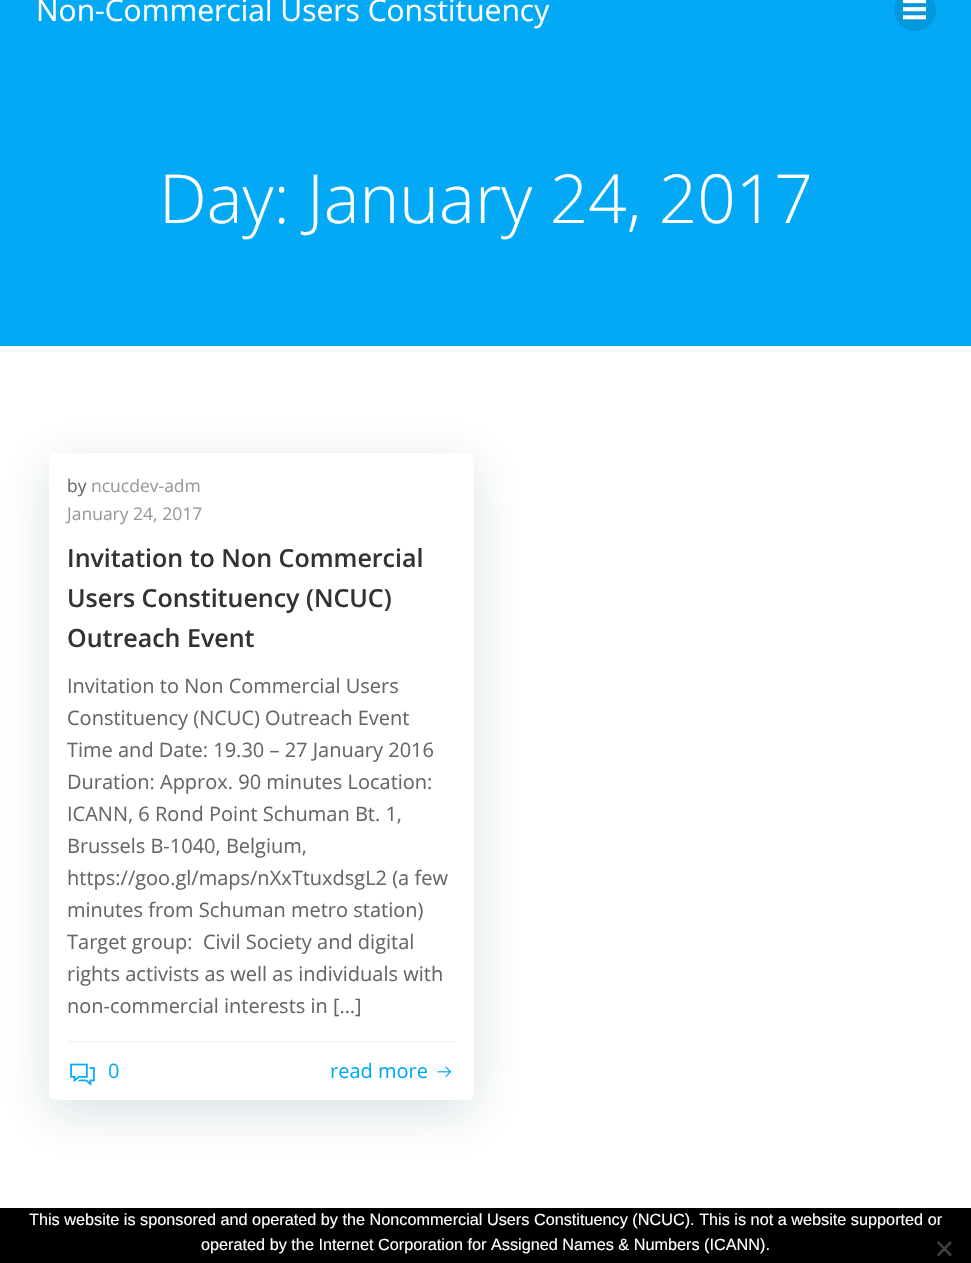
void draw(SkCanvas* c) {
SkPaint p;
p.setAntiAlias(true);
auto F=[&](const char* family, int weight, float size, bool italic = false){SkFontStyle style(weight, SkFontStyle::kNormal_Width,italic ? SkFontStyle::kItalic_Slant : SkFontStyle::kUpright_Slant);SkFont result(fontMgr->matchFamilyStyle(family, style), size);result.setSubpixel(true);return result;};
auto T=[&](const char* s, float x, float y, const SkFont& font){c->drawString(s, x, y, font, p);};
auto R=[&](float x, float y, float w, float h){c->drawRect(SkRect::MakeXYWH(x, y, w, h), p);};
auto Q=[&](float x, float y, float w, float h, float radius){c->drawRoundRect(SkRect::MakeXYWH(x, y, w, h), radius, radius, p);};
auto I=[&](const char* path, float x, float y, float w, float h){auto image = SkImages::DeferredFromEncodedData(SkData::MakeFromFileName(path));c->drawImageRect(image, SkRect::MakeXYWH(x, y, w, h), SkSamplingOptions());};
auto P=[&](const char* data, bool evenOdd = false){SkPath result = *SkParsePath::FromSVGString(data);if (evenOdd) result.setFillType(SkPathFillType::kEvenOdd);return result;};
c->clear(0xffffffff);
p.setColor(0xff03a9f4);
R(0,0,971,346);
auto f1 = F("Open Sans",400,30);
p.setColor(0xffffffff);
T("Non-Commercial Users Constituency",36,21,f1);
p.setColor(0xff0398dc);
c->drawCircle(915,10,21,p);
I("1.png",903,0,23,20);
auto f2 = F("Open Sans",300,67.5);
p.setColor(0xffffffff);
T("Day: January 24, 2017",159,223,f2);
p.setColor(0x2601334a);
p.setMaskFilter(SkMaskFilter::MakeBlur(kNormal_SkBlurStyle, 25));
c->drawRoundRect(SkRect::MakeXYWH(49,465,425,648),6,6,p);
p.setMaskFilter(nullptr);
p.setColor(0xffffffff);
Q(49,453,425,647,6);
p.setColor(0xffeeeeee);
R(68,1041,387,1);
auto f3 = F("Open Sans",400,17.5);
p.setColor(0xff666666);
T("by",67,492,f3);
p.setColor(0xff999999);
T("ncucdev-adm",91,492,f3);
T("January 24, 2017",67,520,f3);
auto f4 = F("Open Sans",600,25);
p.setColor(0xff333333);
T("Invitation to Non Commercial",67,567,f4);
T("Users Constituency (NCUC)",67,607,f4);
T("Outreach Event",67,647,f4);
auto f5 = F("Open Sans",400,20);
p.setColor(0xff666666);
T("Invitation to Non Commercial Users",67,693,f5);
T("Constituency (NCUC) Outreach Event",67,725,f5);
T("Time and Date: 19.30 – 27 January 2016",67,757,f5);
T("Duration: Approx. 90 minutes Location:",67,789,f5);
T("ICANN, 6 Rond Point Schuman Bt. 1,",67,821,f5);
T("Brussels B-1040, Belgium,",67,853,f5);
T("https://goo.gl/maps/nXxTtuxdsgL2 (a few",67,885,f5);
T("minutes from Schuman metro station)",67,917,f5);
T("Target group:  Civil Society and digital",67,949,f5);
T("rights activists as well as individuals with",67,981,f5);
T("non-commercial interests in […]",67,1013,f5);
I("2.png",70,1063,25,23);
p.setColor(0xff03a9f4);
T("0",108,1078,f5);
T("read more",330,1078,f5);
I("3.png",437,1066,15,12);
p.setColor(0xff000000);
R(0,1208,971,55);
auto f6 = F("Liberation Sans",400,16.25);
p.setColor(0xffffffff);
T("This website is sponsored and operated by the Noncommercial Users Constituency (NCUC). This is not a website supported or",29,1225,f6);
T("operated by the Internet Corporation for Assigned Names & Numbers (ICANN).",201,1250,f6);
p.setColor(0xff404040);
c->drawPath(P("M950 1241l2 2l-13.5 13.5l-1.5-2z"),p);
c->drawPath(P("M937 1243l1.5-2l13.5 13.5l-2 2z"),p);
}
